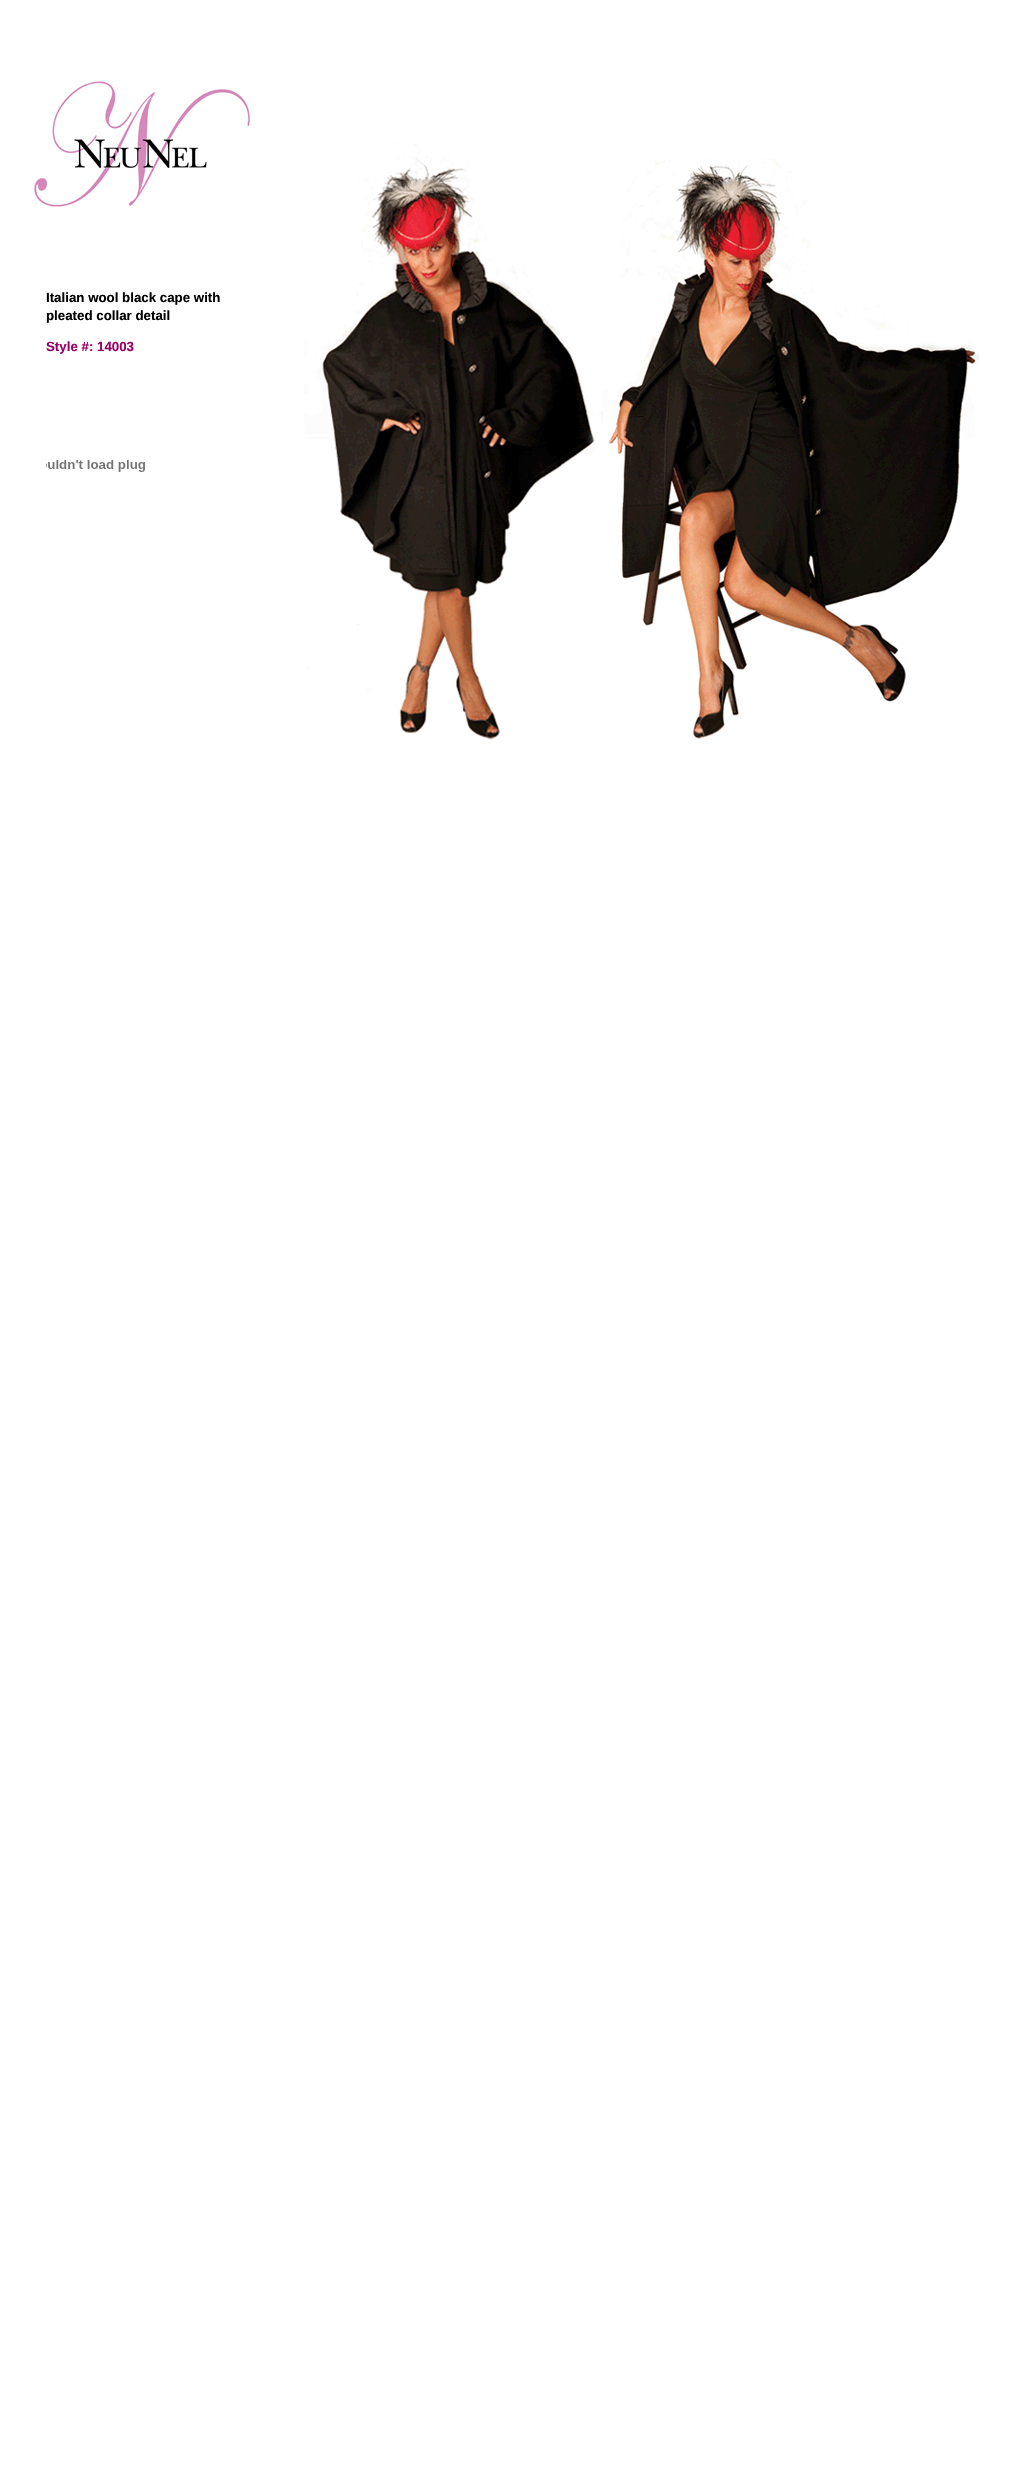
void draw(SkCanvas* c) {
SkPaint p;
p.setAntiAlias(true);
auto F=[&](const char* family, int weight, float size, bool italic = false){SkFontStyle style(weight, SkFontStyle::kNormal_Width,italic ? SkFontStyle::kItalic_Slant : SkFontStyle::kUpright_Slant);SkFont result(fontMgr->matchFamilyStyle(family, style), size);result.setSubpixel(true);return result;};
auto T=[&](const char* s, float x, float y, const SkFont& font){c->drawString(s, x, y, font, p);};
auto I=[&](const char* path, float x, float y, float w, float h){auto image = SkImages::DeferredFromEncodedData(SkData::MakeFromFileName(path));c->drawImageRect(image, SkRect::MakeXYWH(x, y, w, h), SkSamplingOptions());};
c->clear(0xffffffff);
I("1.png",34,81,216,126);
I("2.png",304,143,676,597);
auto f1 = F("Liberation Sans",700,13.3);
p.setColor(0xff000000);
T("Italian wool black cape with",46,302,f1);
T("pleated collar detail",46,320,f1);
p.setColor(0xff990066);
T("Style #: 14003",46,351,f1);
I("3.png",46,460,99,12);
}
